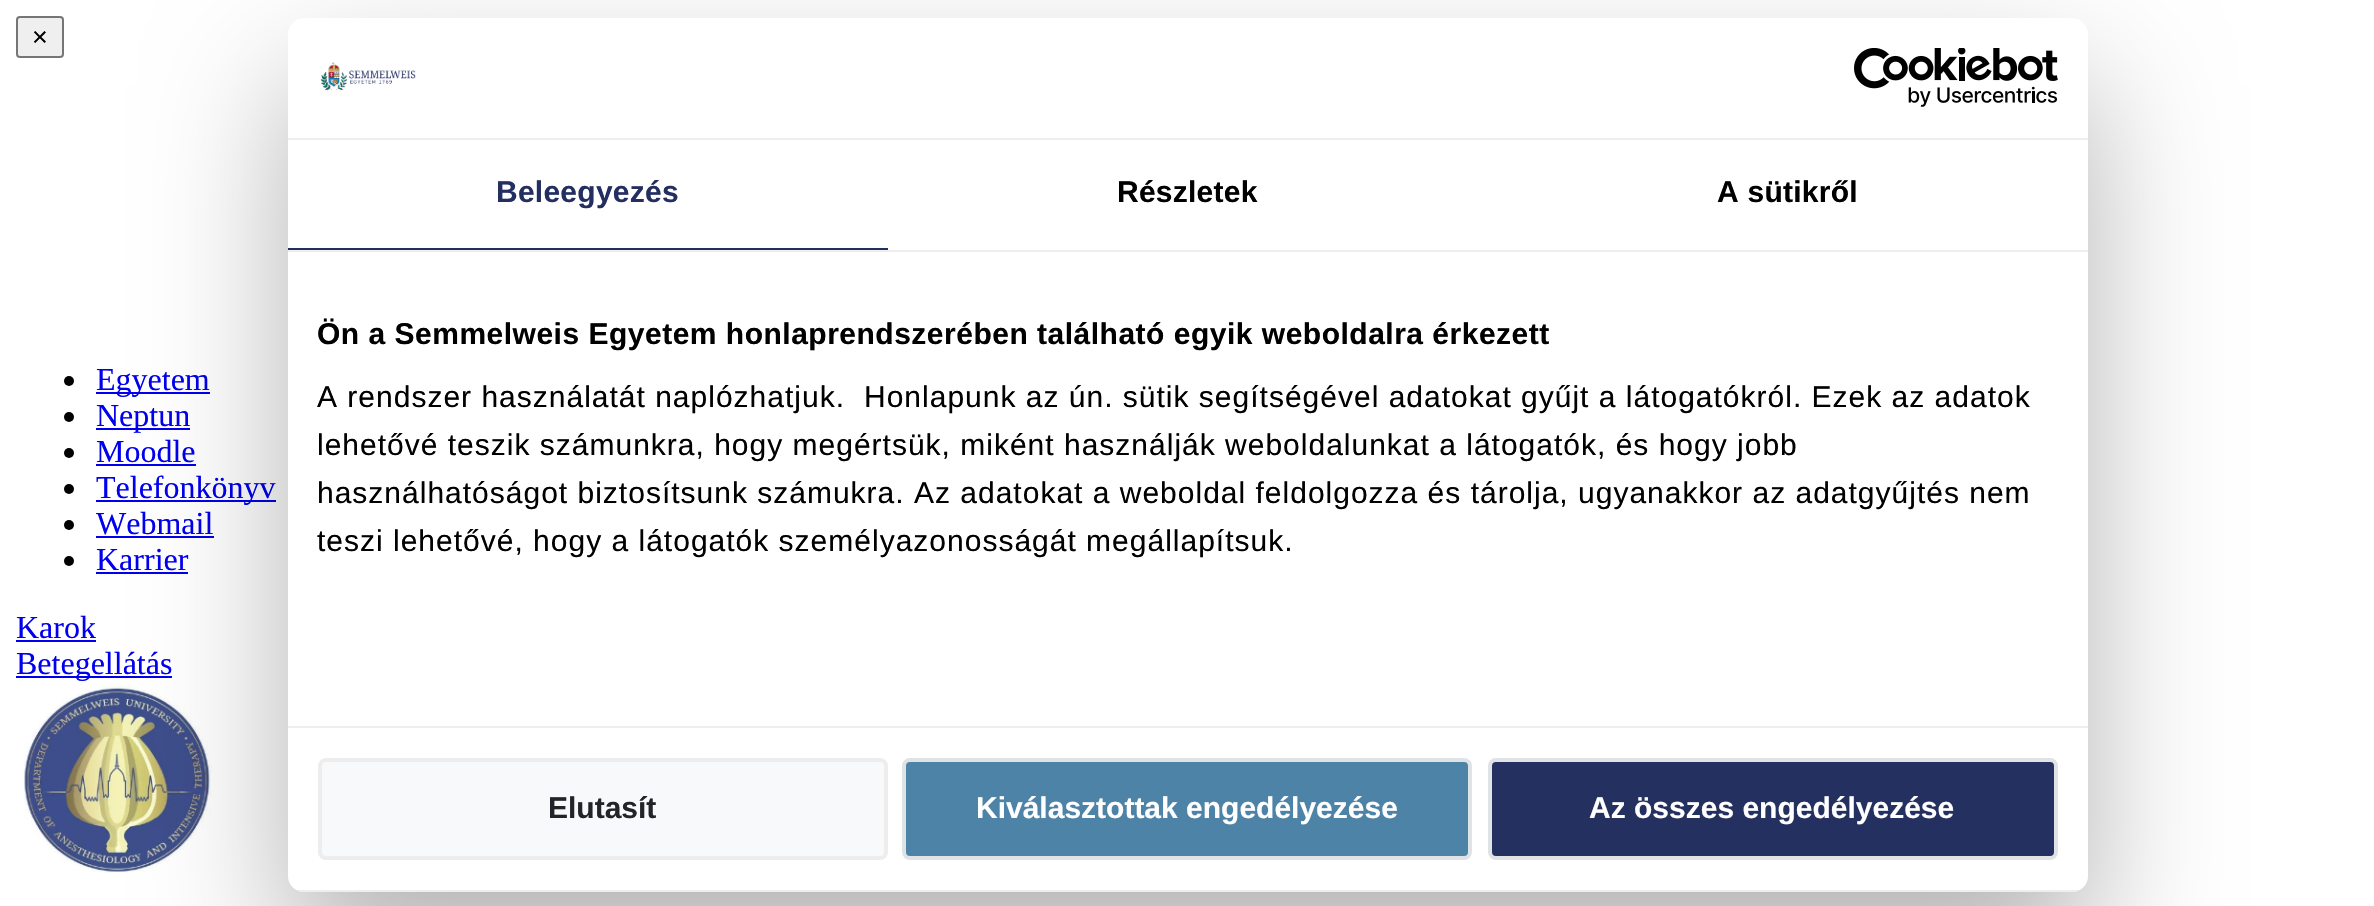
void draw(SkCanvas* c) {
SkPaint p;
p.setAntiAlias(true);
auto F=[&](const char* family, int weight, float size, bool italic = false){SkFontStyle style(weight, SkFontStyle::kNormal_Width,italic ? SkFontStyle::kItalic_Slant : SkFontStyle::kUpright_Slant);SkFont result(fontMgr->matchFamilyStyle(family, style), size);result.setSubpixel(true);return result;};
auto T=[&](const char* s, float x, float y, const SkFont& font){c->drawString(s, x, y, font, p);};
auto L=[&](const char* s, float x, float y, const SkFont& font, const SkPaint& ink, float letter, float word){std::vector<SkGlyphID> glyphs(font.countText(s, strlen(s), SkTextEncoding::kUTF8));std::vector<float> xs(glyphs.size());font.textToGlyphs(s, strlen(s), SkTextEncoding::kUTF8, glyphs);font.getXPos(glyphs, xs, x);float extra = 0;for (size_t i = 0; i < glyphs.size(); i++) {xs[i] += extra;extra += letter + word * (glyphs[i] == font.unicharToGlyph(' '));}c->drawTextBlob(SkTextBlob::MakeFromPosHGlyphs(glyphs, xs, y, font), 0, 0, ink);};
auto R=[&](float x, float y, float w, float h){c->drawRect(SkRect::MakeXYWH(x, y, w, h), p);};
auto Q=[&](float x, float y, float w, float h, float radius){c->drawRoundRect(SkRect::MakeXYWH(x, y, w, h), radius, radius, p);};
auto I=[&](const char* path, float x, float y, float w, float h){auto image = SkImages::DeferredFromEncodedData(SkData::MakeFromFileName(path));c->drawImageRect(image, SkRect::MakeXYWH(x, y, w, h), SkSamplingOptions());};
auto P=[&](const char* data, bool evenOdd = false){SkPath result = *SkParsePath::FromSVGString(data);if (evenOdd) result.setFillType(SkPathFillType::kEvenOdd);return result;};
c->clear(0xffffffff);
p.setColor(0xffefefef);
c->drawRoundRect(SkRect::MakeXYWH(17,17,46,40),3,3,p);
p.setStroke(true);
p.setStrokeWidth(2);
p.setColor(0xff767676);
c->drawRoundRect(SkRect::MakeXYWH(17,17,46,40),3,3,p);
auto f1 = F("Liberation Sans",400,27);
p.setStroke(false);
p.setColor(0xff000000);
T("×",32,46,f1);
c->drawCircle(69,381,5,p);
p.setColor(0xff0000ee);
R(96,392,114,2);
auto f2 = F("Liberation Serif",400,32);
T("Egyetem",96,390,f2);
p.setColor(0xff000000);
c->drawCircle(69,417,5,p);
p.setColor(0xff0000ee);
R(96,428,94,2);
T("Neptun",96,426,f2);
p.setColor(0xff000000);
c->drawCircle(69,453,5,p);
p.setColor(0xff0000ee);
T("Moodle",96,462,f2);
R(96,464,100,2);
p.setColor(0xff000000);
c->drawCircle(69,489,5,p);
p.setColor(0xff0000ee);
R(96,500,180,2);
T("Telefonkönyv",96,498,f2);
p.setColor(0xff000000);
c->drawCircle(69,525,5,p);
p.setColor(0xff0000ee);
T("Webmail",96,534,f2);
R(96,536,118,2);
p.setColor(0xff000000);
c->drawCircle(69,561,5,p);
p.setColor(0xff0000ee);
T("Karrier",96,570,f2);
R(96,572,92,2);
T("Karok",16,638,f2);
R(16,640,80,2);
R(16,676,156,2);
T("Betegellátás",16,674,f2);
I("3.png",23,682,192,191);
p.setColor(0x4d000000);
p.setMaskFilter(SkMaskFilter::MakeBlur(kNormal_SkBlurStyle, 68));
c->drawRoundRect(SkRect::MakeXYWH(288,82,1800,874),16,16,p);
p.setMaskFilter(nullptr);
p.setColor(0xffffffff);
Q(288,18,1800,874,16);
p.setColor(0xffeeeeee);
R(288,138,1800,2);
I("1.png",320,62,96,29);
I("2.png",1854,48,204,59);
R(288,250,1800,2);
p.setColor(0xff232f61);
R(288,248,600,2);
auto f3 = F("Liberation Sans",700,30);
L("Beleegyezés",496,202,f3,p,.25,0);
p.setColor(0xff000000);
L("Részletek",1117,202,f3,p,.25,0);
L("A sütikről",1717,202,f3,p,.25,0);
p.setColor(0xffeeeeee);
R(288,726,1800,2);
p.setColor(0xff000000);
L("Ön a Semmelweis Egyetem honlaprendszerében található egyik weboldalra érkezett",317,344,f3,p,.5,0);
auto f4 = F("Liberation Sans",400,30);
L("A rendszer használatát naplózhatjuk.",317,407,f4,p,1,0);
L("Honlapunk az ún. sütik segítségével adatokat gyűjt a látogatókról. Ezek az adatok",864,407,f4,p,1,0);
L("lehetővé teszik számunkra, hogy megértsük, miként használják weboldalunkat a látogatók, és hogy jobb",317,455,f4,p,1,0);
L("használhatóságot biztosítsunk számukra. Az adatokat a weboldal feldolgozza és tárolja, ugyanakkor az adatgyűjtés nem",317,503,f4,p,1,0);
L("teszi lehetővé, hogy a látogatók személyazonosságát megállapítsuk.",317,551,f4,p,1,0);
c->save();
c->clipPath(P("M304 18h1768c9 0 16 7 16 16v842c0 9-7 16-16 16h-1768c-9 0-16-7-16-16v-842c0-9 7-16 16-16z"),true);
p.setColor(0xffeeeeee);
R(288,890,1800,2);
c->restore();
p.setColor(0xfff8f9fa);
c->drawRoundRect(SkRect::MakeXYWH(320,760,566,98),6,6,p);
p.setStroke(true);
p.setStrokeWidth(4);
p.setColor(0xffededed);
c->drawRoundRect(SkRect::MakeXYWH(320,760,566,98),6,6,p);
p.setStroke(false);
p.setColor(0xff212529);
T("Elutasít",548,818,f3);
p.setColor(0xff4e83a8);
c->drawRoundRect(SkRect::MakeXYWH(904,760,566,98),6,6,p);
p.setStroke(true);
p.setColor(0xffdfe3e6);
c->drawRoundRect(SkRect::MakeXYWH(904,760,566,98),6,6,p);
p.setStroke(false);
p.setColor(0xffffffff);
T("Kiválasztottak engedélyezése",976,818,f3);
p.setColor(0xff243060);
c->drawRoundRect(SkRect::MakeXYWH(1490,760,566,98),6,6,p);
p.setStroke(true);
p.setColor(0xffdfe3e6);
c->drawRoundRect(SkRect::MakeXYWH(1490,760,566,98),6,6,p);
p.setStroke(false);
p.setColor(0xffffffff);
T("Az összes engedélyezése",1589,818,f3);
}
